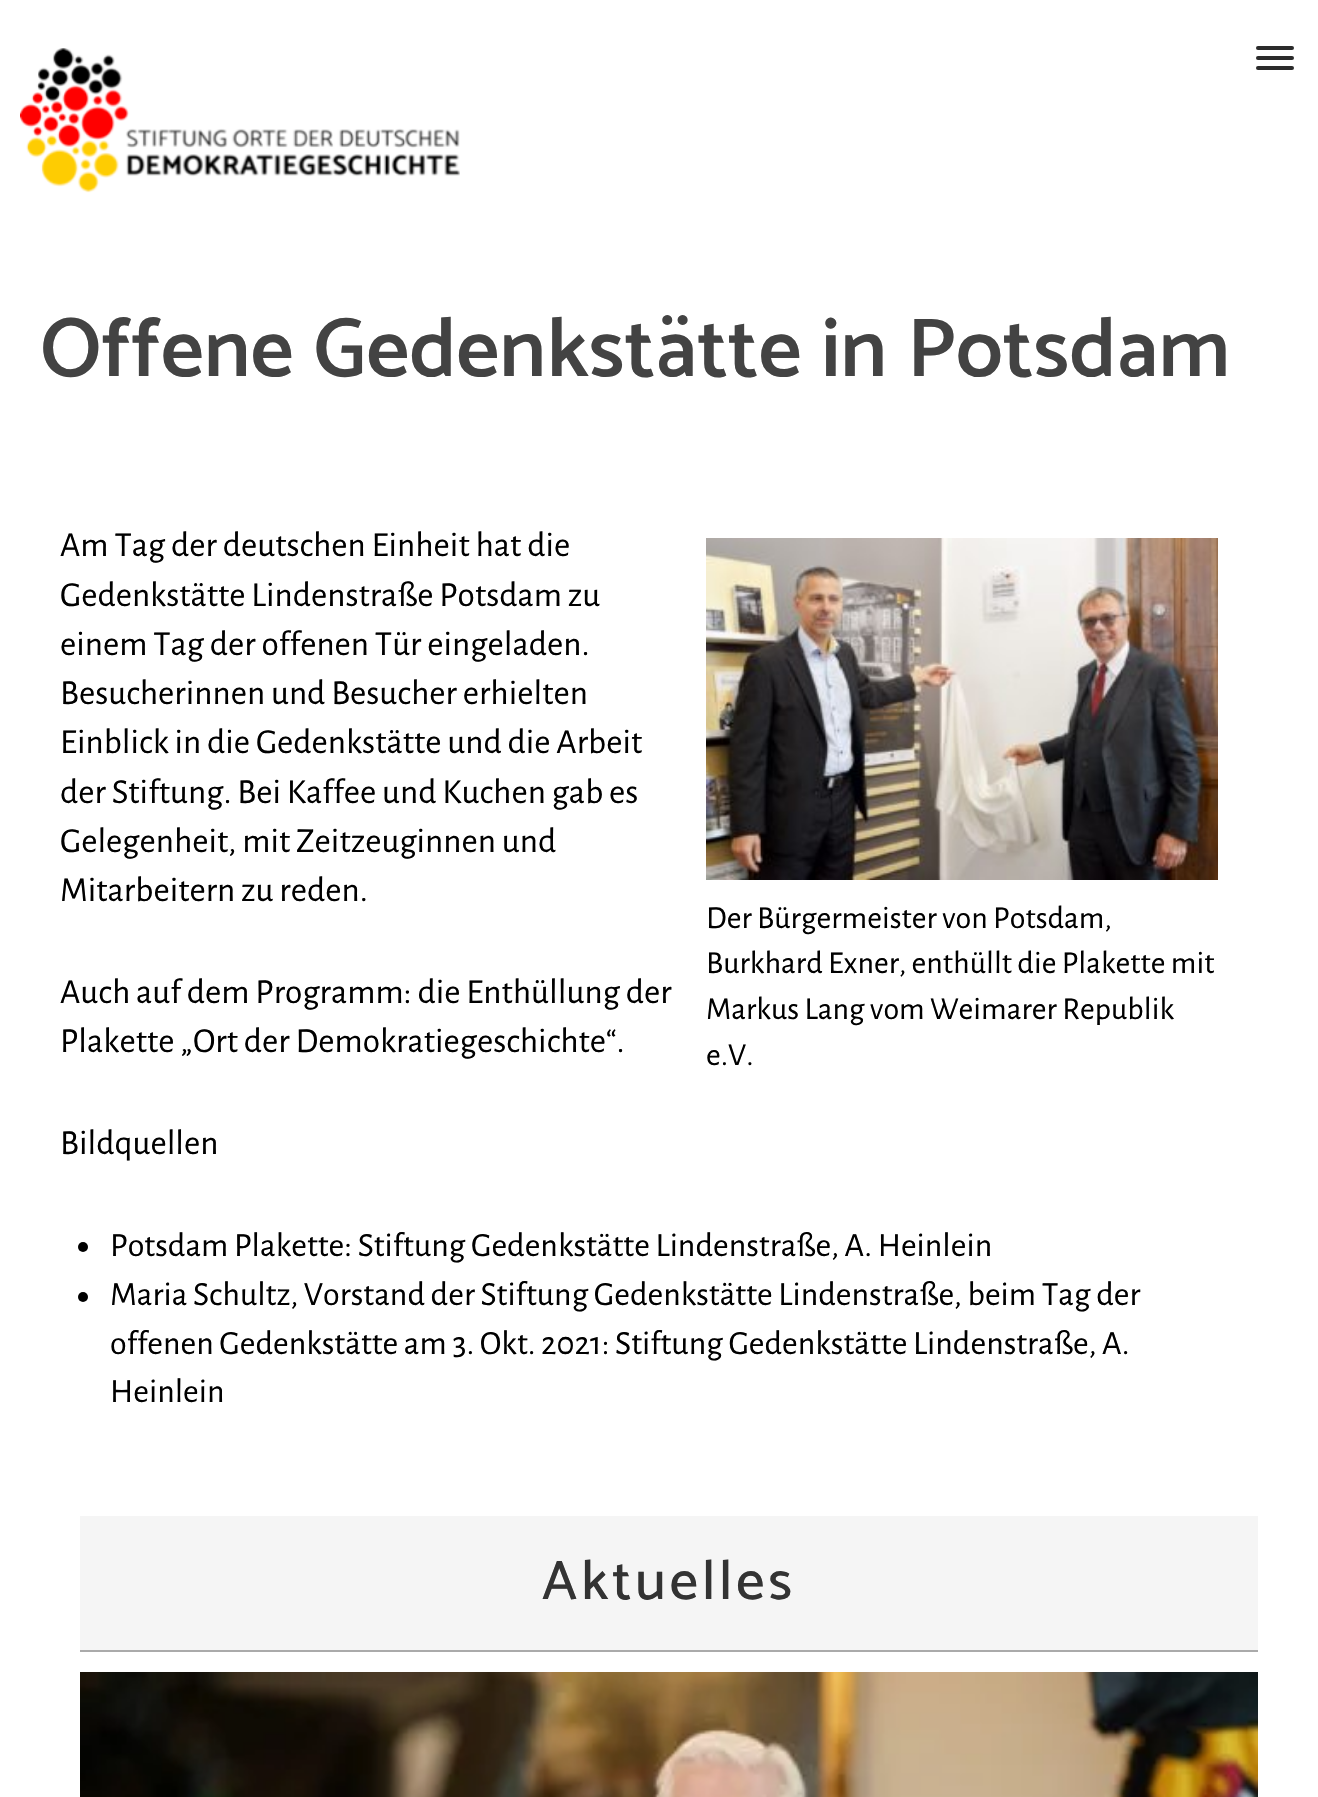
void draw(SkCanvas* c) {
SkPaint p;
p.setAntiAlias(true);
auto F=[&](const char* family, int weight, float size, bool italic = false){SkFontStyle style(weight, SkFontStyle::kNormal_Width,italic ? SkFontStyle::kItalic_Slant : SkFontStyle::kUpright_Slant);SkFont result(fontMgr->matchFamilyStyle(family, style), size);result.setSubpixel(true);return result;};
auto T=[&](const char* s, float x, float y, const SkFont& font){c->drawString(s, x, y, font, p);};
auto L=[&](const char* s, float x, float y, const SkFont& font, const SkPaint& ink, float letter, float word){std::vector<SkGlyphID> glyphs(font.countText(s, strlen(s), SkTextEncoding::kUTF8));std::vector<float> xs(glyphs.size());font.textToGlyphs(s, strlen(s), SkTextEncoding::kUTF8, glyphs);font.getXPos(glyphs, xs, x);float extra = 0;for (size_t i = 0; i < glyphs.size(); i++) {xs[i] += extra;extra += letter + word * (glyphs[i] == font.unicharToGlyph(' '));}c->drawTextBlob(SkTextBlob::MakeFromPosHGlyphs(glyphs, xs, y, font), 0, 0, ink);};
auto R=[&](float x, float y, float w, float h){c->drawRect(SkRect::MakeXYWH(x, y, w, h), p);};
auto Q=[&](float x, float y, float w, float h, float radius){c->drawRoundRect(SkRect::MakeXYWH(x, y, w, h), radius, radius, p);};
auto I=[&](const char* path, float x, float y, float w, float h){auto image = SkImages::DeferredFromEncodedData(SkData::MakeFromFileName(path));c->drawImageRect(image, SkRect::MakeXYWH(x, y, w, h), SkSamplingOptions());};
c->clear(0xffffffff);
I("1.png",20,48,440,145);
p.setColor(0xff2b2b2b);
Q(1256,46,38,4,2);
Q(1256,56,38,4,2);
Q(1256,66,38,4,2);
auto f1 = F("Catamaran",600,84);
p.setColor(0xff434343);
L("Offene Gedenkstätte in Potsdam",40,376,f1,p,.3,0);
auto f2 = F("Alegreya Sans",400,35.25);
p.setColor(0xff000000);
T("Am Tag der deutschen Einheit hat die",60,556,f2);
T("Gedenkstätte Lindenstraße Potsdam zu",60,606,f2);
T("einem Tag der offenen Tür eingeladen.",60,655,f2);
T("Besucherinnen und Besucher erhielten",60,704,f2);
T("Einblick in die Gedenkstätte und die Arbeit",60,753,f2);
T("der Stiftung. Bei Kaffee und Kuchen gab es",60,803,f2);
T("Gelegenheit, mit Zeitzeuginnen und",60,852,f2);
T("Mitarbeitern zu reden.",60,901,f2);
T("Auch auf dem Programm: die Enthüllung der",60,1003,f2);
T("Plakette „Ort der Demokratiegeschichte“.",60,1052,f2);
I("2.png",706,538,512,342);
auto f3 = F("Alegreya Sans",400,32);
T("Der Bürgermeister von Potsdam,",706,928,f3);
T("Burkhard Exner, enthüllt die Plakette mit",706,973,f3);
T("Markus Lang vom Weimarer Republik",706,1019,f3);
T("e.V.",706,1065,f3);
T("Bildquellen",60,1154,f2);
c->drawCircle(83,1247,5,p);
auto f4 = F("Alegreya Sans",400,34);
T("Potsdam Plakette: Stiftung Gedenkstätte Lindenstraße, A. Heinlein",110,1256,f4);
c->drawCircle(83,1297,5,p);
T("Maria Schultz, Vorstand der Stiftung Gedenkstätte Lindenstraße, beim Tag der",110,1305,f4);
T("offenen Gedenkstätte am 3. Okt. 2021: Stiftung Gedenkstätte Lindenstraße, A.",110,1354,f4);
T("Heinlein",110,1402,f4);
p.setColor(0xfff5f5f5);
R(80,1516,1178,134);
p.setColor(0xffaaaaaa);
R(80,1650,1178,2);
auto f5 = F("Catamaran",500,56);
p.setColor(0xff333333);
L("Aktuelles",542,1599,f5,p,4,0);
I("3.png",80,1672,1178,125);
}
